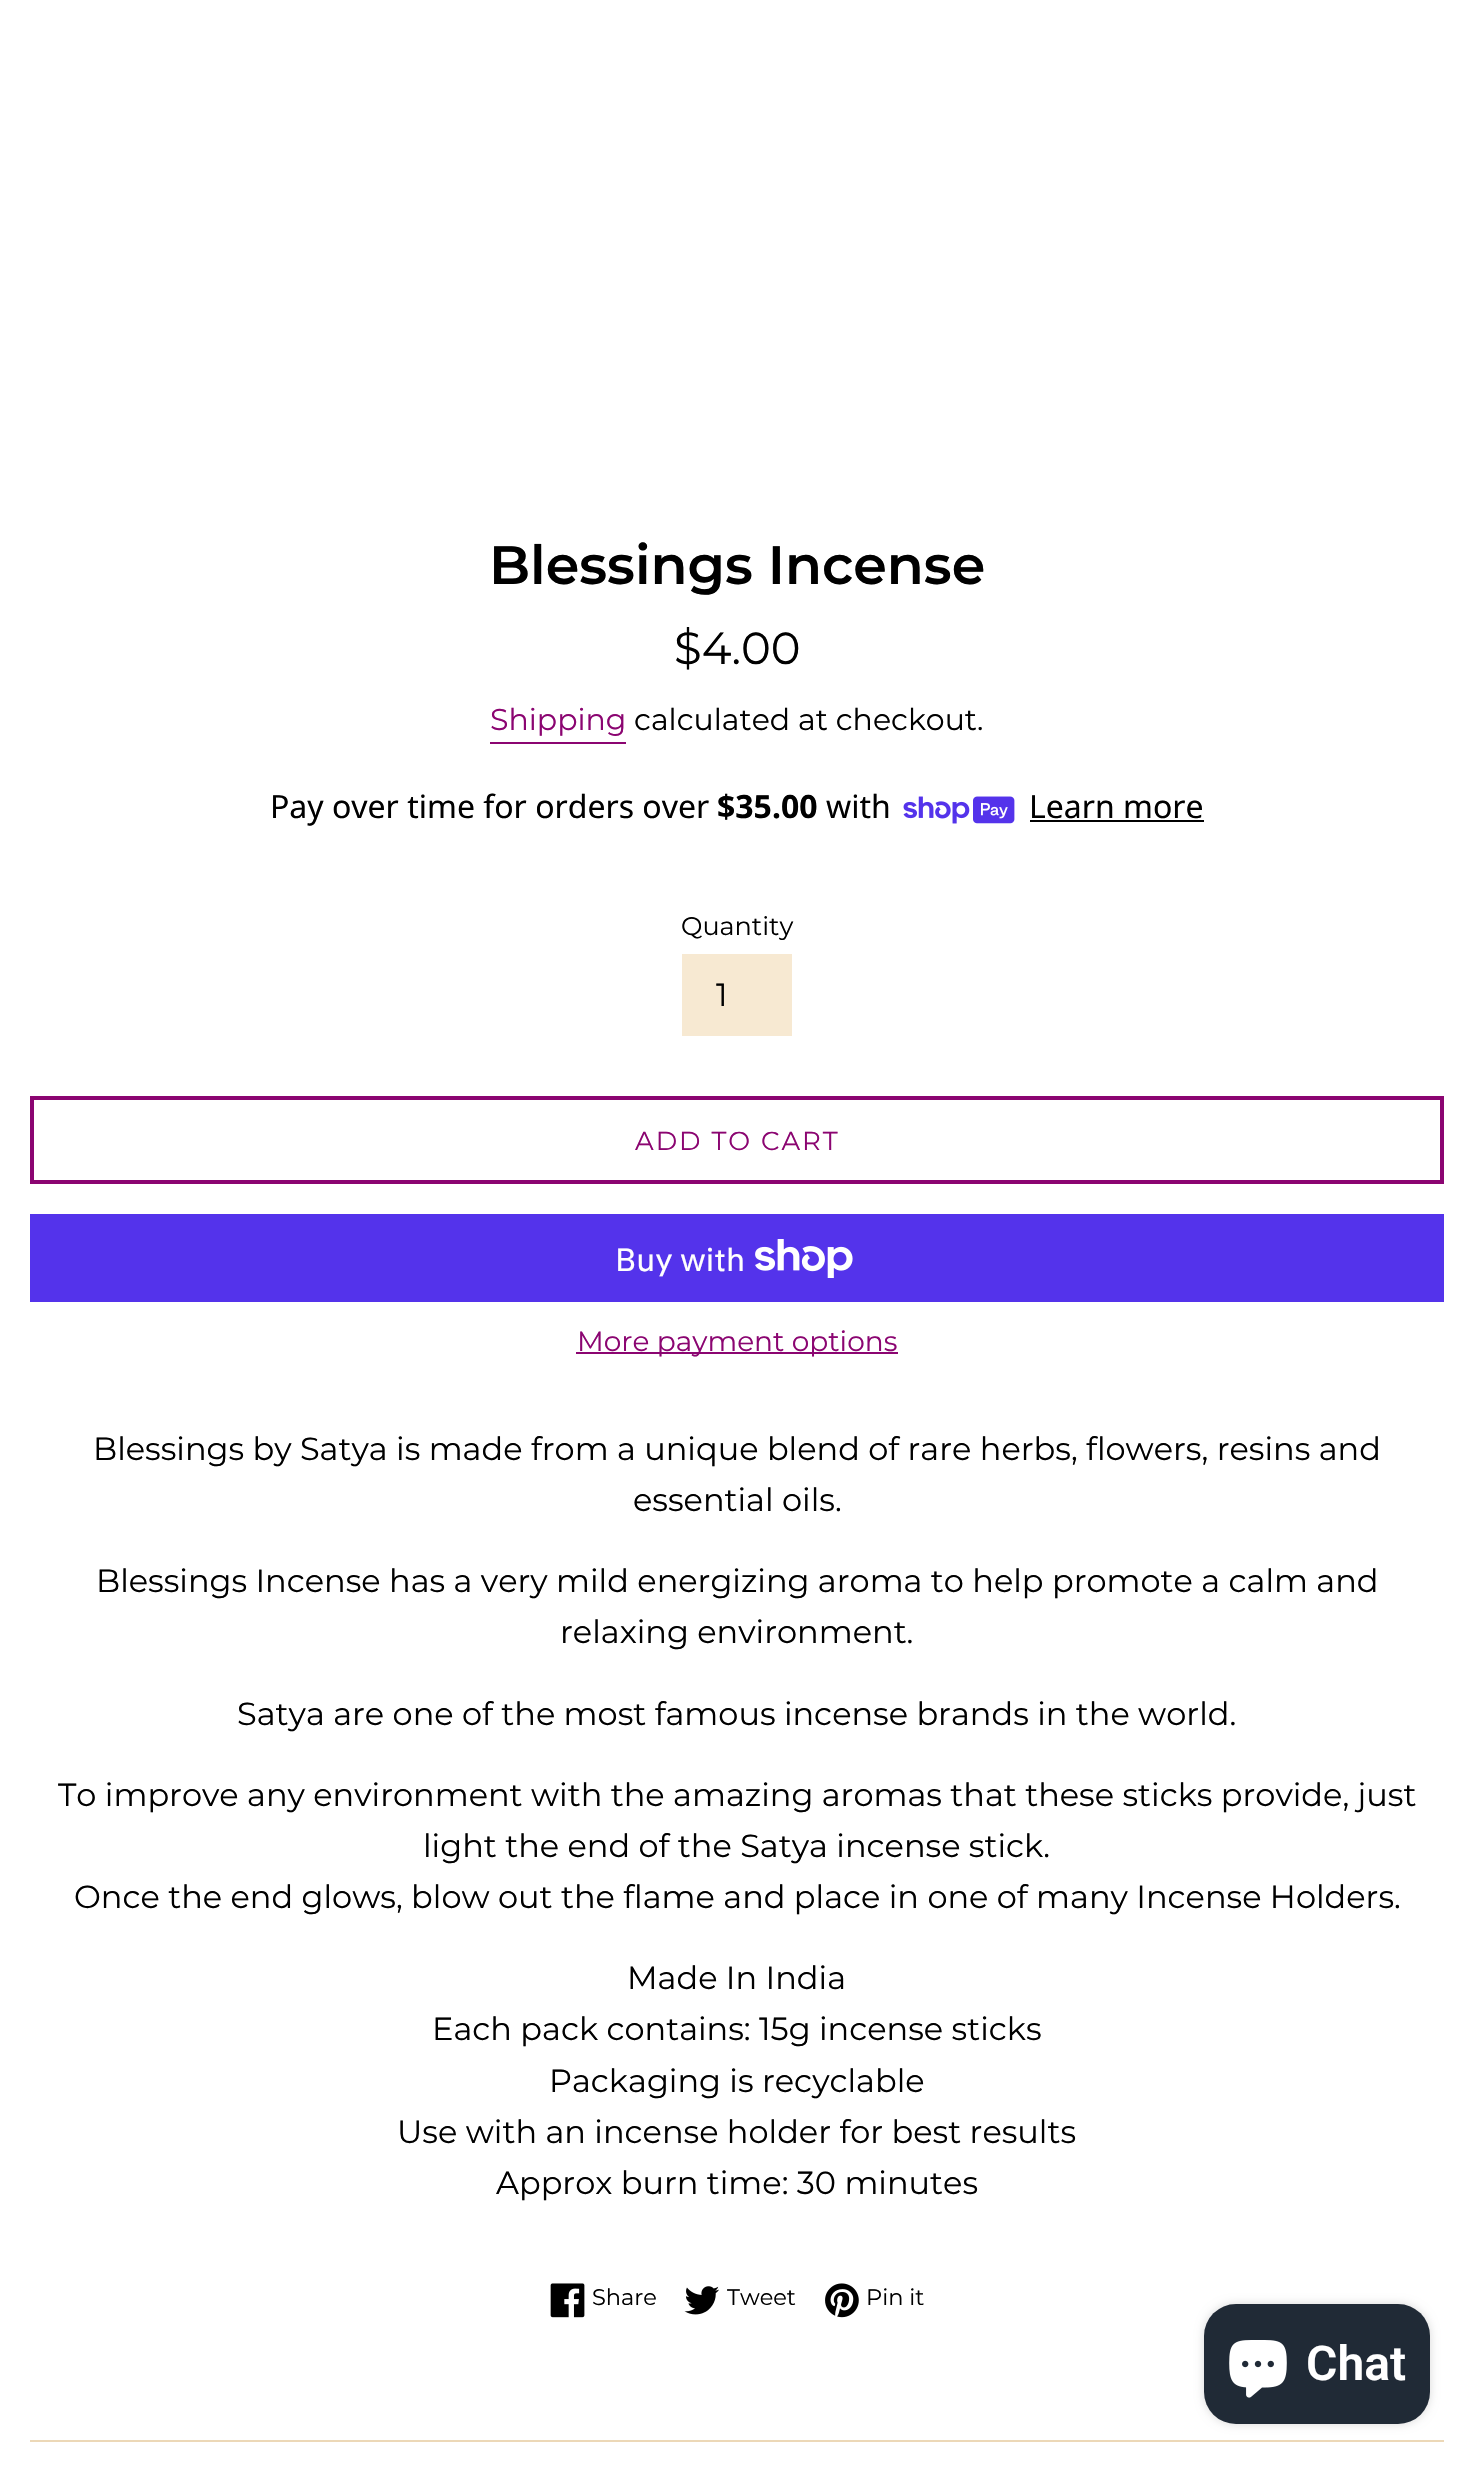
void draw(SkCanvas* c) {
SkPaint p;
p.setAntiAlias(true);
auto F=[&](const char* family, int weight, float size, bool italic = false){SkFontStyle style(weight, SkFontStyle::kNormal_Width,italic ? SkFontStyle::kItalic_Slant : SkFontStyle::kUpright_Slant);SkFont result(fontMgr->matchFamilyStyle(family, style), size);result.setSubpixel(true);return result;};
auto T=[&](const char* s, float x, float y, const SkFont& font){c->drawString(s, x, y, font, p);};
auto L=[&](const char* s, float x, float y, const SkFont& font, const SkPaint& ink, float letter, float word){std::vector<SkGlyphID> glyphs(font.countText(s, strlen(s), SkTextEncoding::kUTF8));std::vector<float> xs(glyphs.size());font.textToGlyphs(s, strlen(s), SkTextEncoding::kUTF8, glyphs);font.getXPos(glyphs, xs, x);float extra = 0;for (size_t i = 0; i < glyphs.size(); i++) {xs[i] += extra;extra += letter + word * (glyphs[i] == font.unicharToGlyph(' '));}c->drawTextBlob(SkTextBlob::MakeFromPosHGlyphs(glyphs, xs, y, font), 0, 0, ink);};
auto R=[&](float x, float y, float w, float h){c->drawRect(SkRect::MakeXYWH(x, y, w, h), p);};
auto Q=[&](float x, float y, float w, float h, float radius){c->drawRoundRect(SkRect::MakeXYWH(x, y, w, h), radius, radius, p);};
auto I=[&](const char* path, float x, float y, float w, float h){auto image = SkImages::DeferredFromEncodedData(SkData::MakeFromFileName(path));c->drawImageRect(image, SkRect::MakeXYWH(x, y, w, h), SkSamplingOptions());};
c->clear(0xffffffff);
auto f1 = F("Montserrat",600,54);
p.setColor(0xff000000);
T("Blessings Incense",489,584,f1);
auto f2 = F("Montserrat",400,45);
T("$4.00",674,664,f2);
auto f3 = F("Montserrat",400,30);
p.setColor(0xff8b0571);
T("Shipping",490,730,f3);
R(490,742,136,2);
p.setColor(0xff000000);
T("calculated at checkout.",634,730,f3);
auto f4 = F("Noto Sans",400,32);
T("Pay over time for orders over",270,818,f4);
auto f5 = F("Noto Sans",700,32);
T("$35.00",717,818,f5);
T("with",826,818,f4);
I("1.png",903,796,112,28);
T("Learn more",1029,818,f4);
R(1030,820,174,2);
auto f6 = F("Montserrat",400,25.5);
T("Quantity",681,935,f6);
p.setColor(0xfff7e9d2);
R(682,954,110,82);
auto f7 = F("Montserrat",400,32);
p.setColor(0xff000000);
T("1",716,1006,f7);
p.setStroke(true);
p.setStrokeWidth(4);
p.setColor(0xff8b0571);
c->drawRect(SkRect::MakeXYWH(32,1098,1410,84),p);
auto f8 = F("Montserrat",400,26);
p.setStroke(false);
L("ADD TO CART",635,1150,f8,p,2,0);
p.setColor(0xff5433eb);
R(30,1214,1414,88);
auto f9 = F("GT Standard",400,32);
p.setColor(0xffffffff);
T("Buy with",615,1271,f9);
I("2.png",755,1239,98,39);
p.setColor(0xff8b0571);
R(576,1352,322,2);
auto f10 = F("Montserrat",400,28);
T("More payment options",577,1351,f10);
p.setColor(0xff000000);
T("Blessings by Satya is made from a unique blend of rare herbs, flowers, resins and",93,1460,f7);
T("essential oils.",633,1511,f7);
T("Blessings Incense has a very mild energizing aroma to help promote a calm and",96,1592,f7);
T("relaxing environment.",560,1643,f7);
T("Satya are one of the most famous incense brands in the world.",237,1725,f7);
T("To improve any environment with the amazing aromas that these sticks provide, just",58,1806,f7);
T("light the end of the Satya incense stick.",423,1857,f7);
T("Once the end glows, blow out the flame and place in one of many Incense Holders.",74,1908,f7);
T("Made In India",627,1989,f7);
T("Each pack contains: 15g incense sticks",432,2040,f7);
T("Packaging is recyclable",549,2092,f7);
T("Use with an incense holder for best results",397,2143,f7);
T("Approx burn time: 30 minutes",496,2194,f7);
I("3.png",550,2283,35,35);
auto f11 = F("Montserrat",400,22.5);
T("Share",592,2305,f11);
I("4.png",684,2286,35,29);
T("Tweet",727,2305,f11);
I("5.png",825,2283,34,35);
T("Pin it",866,2305,f11);
p.setColor(0xffecd8b7);
R(30,2440,1414,2);
p.setColor(0x26000000);
p.setMaskFilter(SkMaskFilter::MakeBlur(kNormal_SkBlurStyle, 5));
c->drawRoundRect(SkRect::MakeXYWH(1204,2304,226,120),32,32,p);
p.setMaskFilter(nullptr);
p.setColor(0xff202a36);
Q(1204,2304,226,120,32);
I("6.png",1229,2340,58,58);
auto f12 = F("Roboto",600,48);
p.setColor(0xffffffff);
T("Chat",1306,2380,f12);
}
